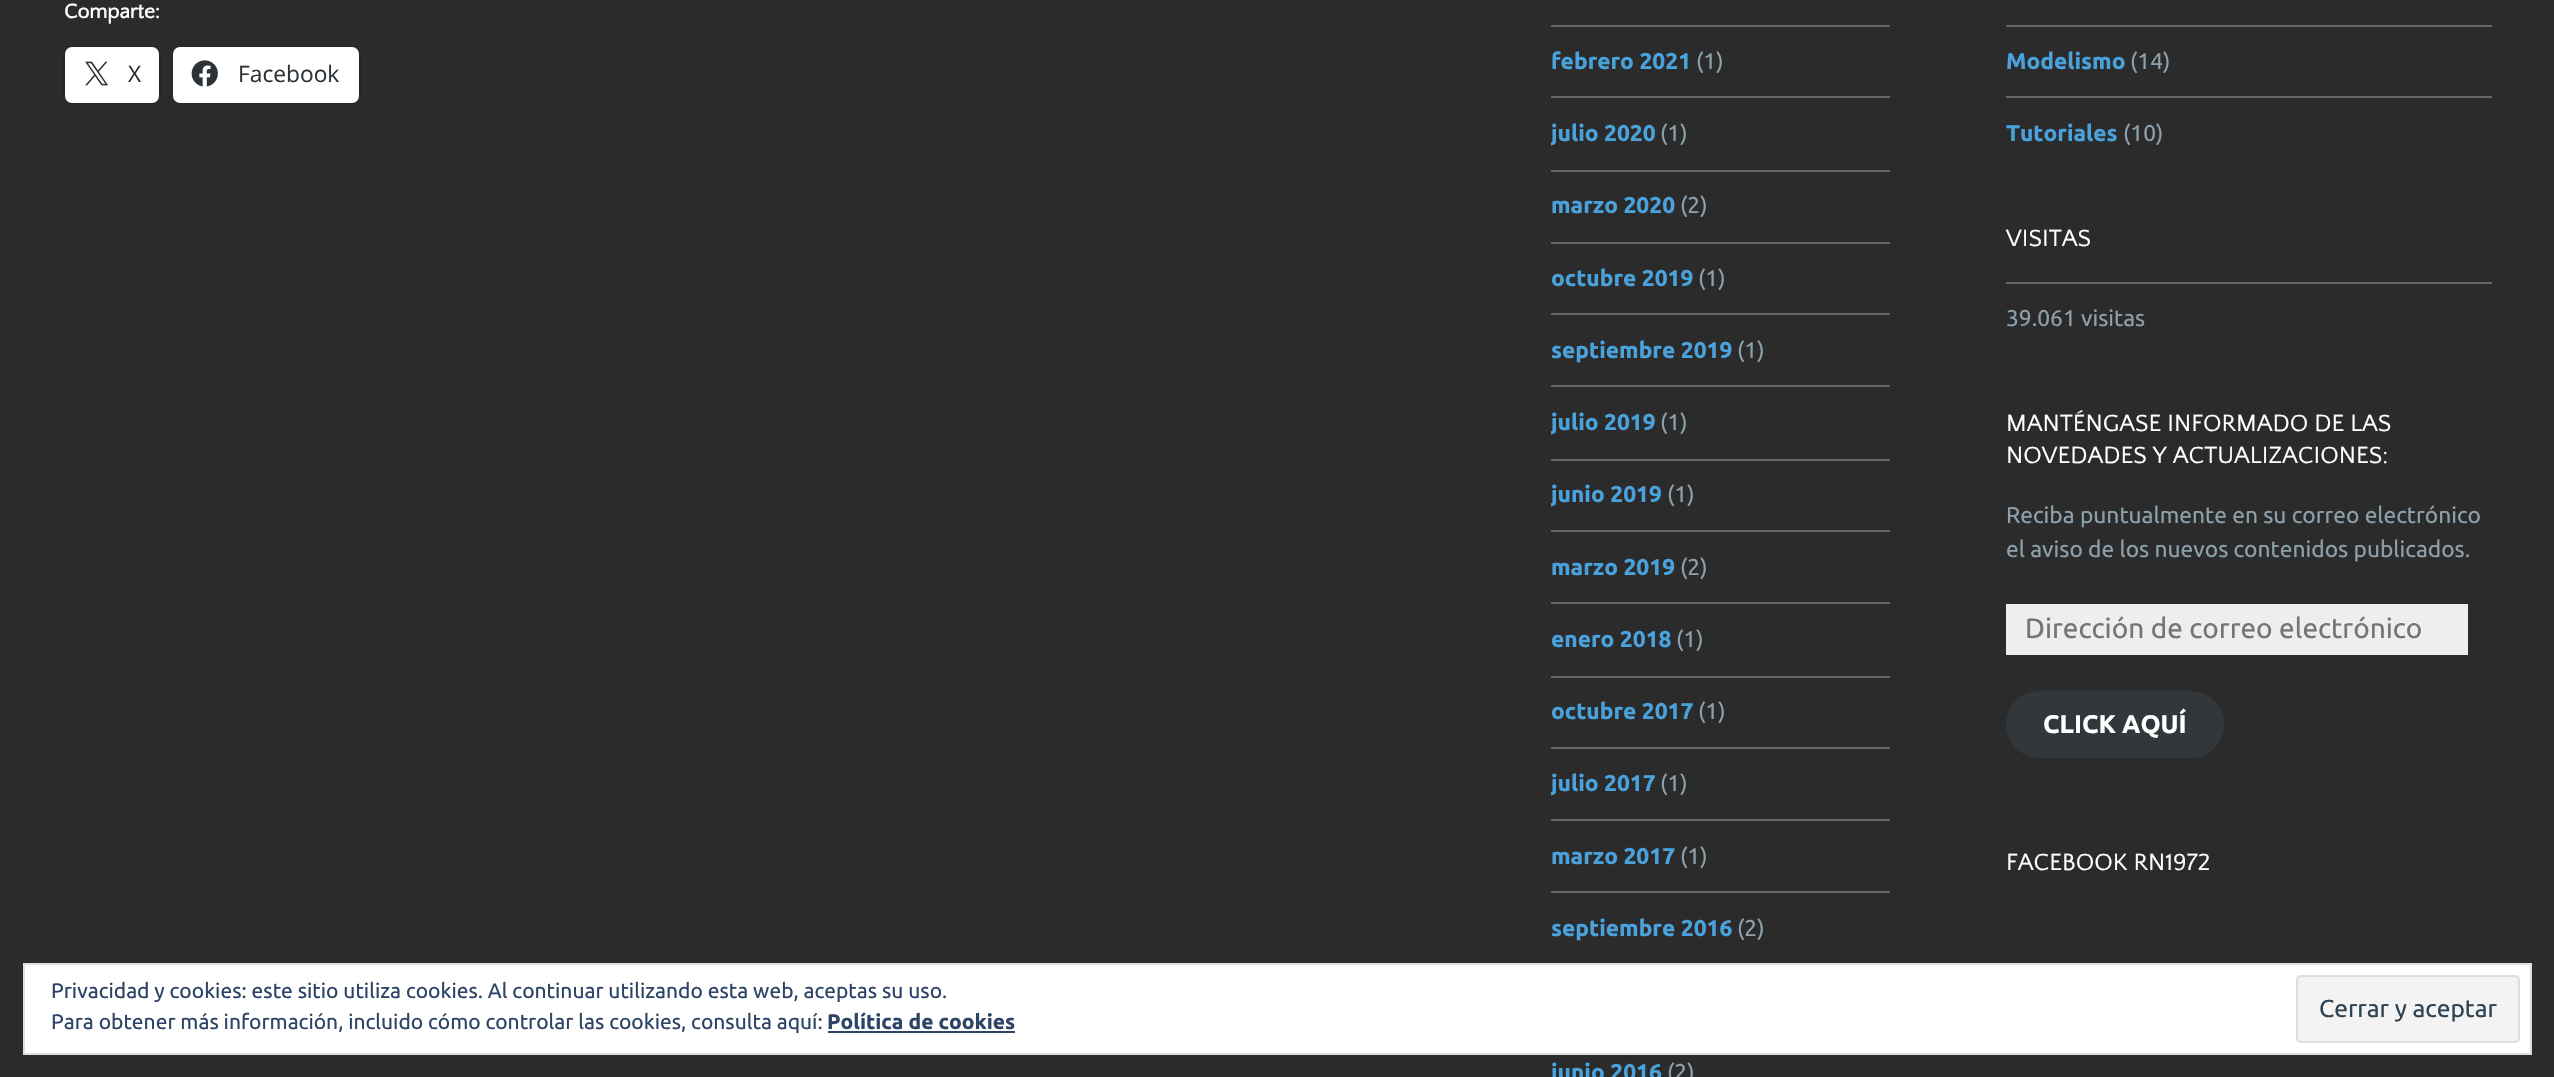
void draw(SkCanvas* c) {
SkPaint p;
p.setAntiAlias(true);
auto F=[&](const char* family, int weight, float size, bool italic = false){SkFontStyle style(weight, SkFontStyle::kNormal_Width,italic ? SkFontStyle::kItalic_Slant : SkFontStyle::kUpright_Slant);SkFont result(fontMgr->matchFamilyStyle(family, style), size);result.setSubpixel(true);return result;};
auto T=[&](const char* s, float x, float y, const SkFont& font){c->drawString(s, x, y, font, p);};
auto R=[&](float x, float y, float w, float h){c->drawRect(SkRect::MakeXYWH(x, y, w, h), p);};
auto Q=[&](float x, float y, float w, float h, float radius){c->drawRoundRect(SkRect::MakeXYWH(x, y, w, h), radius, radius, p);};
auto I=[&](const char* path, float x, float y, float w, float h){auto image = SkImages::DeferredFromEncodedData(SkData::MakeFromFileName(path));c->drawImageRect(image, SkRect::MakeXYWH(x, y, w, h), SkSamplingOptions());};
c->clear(0xff2b2b2b);
auto f1 = F("Quattrocento Sans",700,21);
p.setColor(0xffffffff);
T("Comparte:",64,18,f1);
p.setStroke(true);
p.setStrokeWidth(2);
p.setColor(0xff262626);
c->drawRoundRect(SkRect::MakeXYWH(64,47,96,57),8,8,p);
p.setStroke(false);
p.setColor(0xffffffff);
Q(65,47,94,56,7);
I("1.png",85,61,24,25);
auto f2 = F("Open Sans",400,22.75);
p.setColor(0xff2c3338);
T("X",128,82,f2);
p.setStroke(true);
p.setColor(0xff262626);
c->drawRoundRect(SkRect::MakeXYWH(173,47,187,57),8,8,p);
p.setStroke(false);
p.setColor(0xffffffff);
Q(173,47,186,56,7);
I("2.png",191,60,27,27);
p.setColor(0xff2c3338);
T("Facebook",238,82,f2);
p.setColor(0xff666666);
R(1551,25,339,2);
auto f3 = F("Ubuntu",700,22.75);
p.setColor(0xff4aa2dd);
T("febrero 2021",1551,69,f3);
auto f4 = F("Ubuntu",400,22.75);
p.setColor(0xff8c9faa);
T("(1)",1696,69,f4);
p.setColor(0xff666666);
R(1551,96,339,2);
c->save();
c->clipRect(SkRect::MakeXYWH(1551,0,339,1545));
p.setColor(0xff4aa2dd);
T("julio 2020",1551,141,f3);
c->restore();
p.setColor(0xff8c9faa);
T("(1)",1660,141,f4);
p.setColor(0xff666666);
R(1551,170,339,2);
p.setColor(0xff4aa2dd);
T("marzo 2020",1551,213,f3);
p.setColor(0xff8c9faa);
T("(2)",1680,213,f4);
p.setColor(0xff666666);
R(1551,242,339,2);
p.setColor(0xff4aa2dd);
T("octubre 2019",1551,286,f3);
p.setColor(0xff8c9faa);
T("(1)",1698,286,f4);
p.setColor(0xff666666);
R(1551,313,339,2);
p.setColor(0xff4aa2dd);
T("septiembre 2019",1551,358,f3);
p.setColor(0xff8c9faa);
T("(1)",1737,358,f4);
p.setColor(0xff666666);
R(1551,385,339,2);
c->save();
c->clipRect(SkRect::MakeXYWH(1551,0,339,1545));
p.setColor(0xff4aa2dd);
T("julio 2019",1551,430,f3);
c->restore();
p.setColor(0xff8c9faa);
T("(1)",1660,430,f4);
p.setColor(0xff666666);
R(1551,459,339,2);
c->save();
c->clipRect(SkRect::MakeXYWH(1551,0,339,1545));
p.setColor(0xff4aa2dd);
T("junio 2019",1551,502,f3);
c->restore();
p.setColor(0xff8c9faa);
T("(1)",1667,502,f4);
p.setColor(0xff666666);
R(1551,530,339,2);
p.setColor(0xff4aa2dd);
T("marzo 2019",1551,575,f3);
p.setColor(0xff8c9faa);
T("(2)",1680,575,f4);
p.setColor(0xff666666);
R(1551,602,339,2);
p.setColor(0xff4aa2dd);
T("enero 2018",1551,647,f3);
p.setColor(0xff8c9faa);
T("(1)",1676,647,f4);
p.setColor(0xff666666);
R(1551,676,339,2);
p.setColor(0xff4aa2dd);
T("octubre 2017",1551,719,f3);
p.setColor(0xff8c9faa);
T("(1)",1698,719,f4);
p.setColor(0xff666666);
R(1551,747,339,2);
c->save();
c->clipRect(SkRect::MakeXYWH(1551,0,339,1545));
p.setColor(0xff4aa2dd);
T("julio 2017",1551,791,f3);
c->restore();
p.setColor(0xff8c9faa);
T("(1)",1660,791,f4);
p.setColor(0xff666666);
R(1551,819,339,2);
p.setColor(0xff4aa2dd);
T("marzo 2017",1551,864,f3);
p.setColor(0xff8c9faa);
T("(1)",1680,864,f4);
p.setColor(0xff666666);
R(1551,891,339,2);
p.setColor(0xff4aa2dd);
T("septiembre 2016",1551,936,f3);
p.setColor(0xff8c9faa);
T("(2)",1737,936,f4);
p.setColor(0xff4aa2dd);
T("junio 2016",1551,1080,f3);
p.setColor(0xff8c9faa);
T("(2)",1667,1080,f4);
p.setColor(0xff666666);
R(2006,25,486,2);
p.setColor(0xff4aa2dd);
T("Modelismo",2006,69,f3);
p.setColor(0xff8c9faa);
T("(14)",2130,69,f4);
p.setColor(0xff666666);
R(2006,96,486,2);
p.setColor(0xff4aa2dd);
T("Tutoriales",2006,141,f3);
p.setColor(0xff8c9faa);
T("(10)",2123,141,f4);
auto f5 = F("Quattrocento Sans",400,24.5);
p.setColor(0xffffffff);
T("VISITAS",2006,246,f5);
p.setColor(0xff666666);
R(2006,282,486,2);
p.setColor(0xff8c9faa);
T("39.061 visitas",2006,326,f4);
p.setColor(0xffffffff);
T("MANTÉNGASE INFORMADO DE LAS",2006,431,f5);
T("NOVEDADES Y ACTUALIZACIONES:",2006,463,f5);
p.setColor(0xff8c9faa);
T("Reciba puntualmente en su correo electrónico",2006,523,f4);
T("el aviso de los nuevos contenidos publicados.",2006,557,f4);
p.setColor(0xffeeeeee);
R(2006,604,462,51);
auto f6 = F("Ubuntu",400,28);
p.setColor(0xff757575);
T("Dirección de correo electrónico",2025,638,f6);
p.setColor(0xff32373c);
Q(2006,691,218,67,33.5);
auto f7 = F("Ubuntu",700,25.5);
p.setColor(0xffffffff);
T("CLICK AQUÍ",2043,733,f7);
T("FACEBOOK RN1972",2006,870,f5);
c->drawRect(SkRect::MakeXYWH(24,964,2507,90),p);
p.setStroke(true);
p.setColor(0xffdedede);
c->drawRect(SkRect::MakeXYWH(24,964,2507,90),p);
auto f8 = F("Ubuntu",400,21);
p.setStroke(false);
p.setColor(0xff2e4467);
T("Privacidad y cookies: este sitio utiliza cookies. Al continuar utilizando esta web, aceptas su uso.",51,998,f8);
T("Para obtener más información, incluido cómo controlar las cookies, consulta aquí:",51,1029,f8);
auto f9 = F("Ubuntu",700,21);
T("Política de cookies",827,1029,f9);
R(828,1031,187,2);
p.setColor(0xfff3f3f3);
c->drawRoundRect(SkRect::MakeXYWH(2297,976,222,66),4,4,p);
p.setStroke(true);
p.setColor(0xffdedede);
c->drawRoundRect(SkRect::MakeXYWH(2297,976,222,66),4,4,p);
auto f10 = F("Ubuntu",400,24.5);
p.setStroke(false);
p.setColor(0xff2e4453);
T("Cerrar y aceptar",2319,1017,f10);
}
